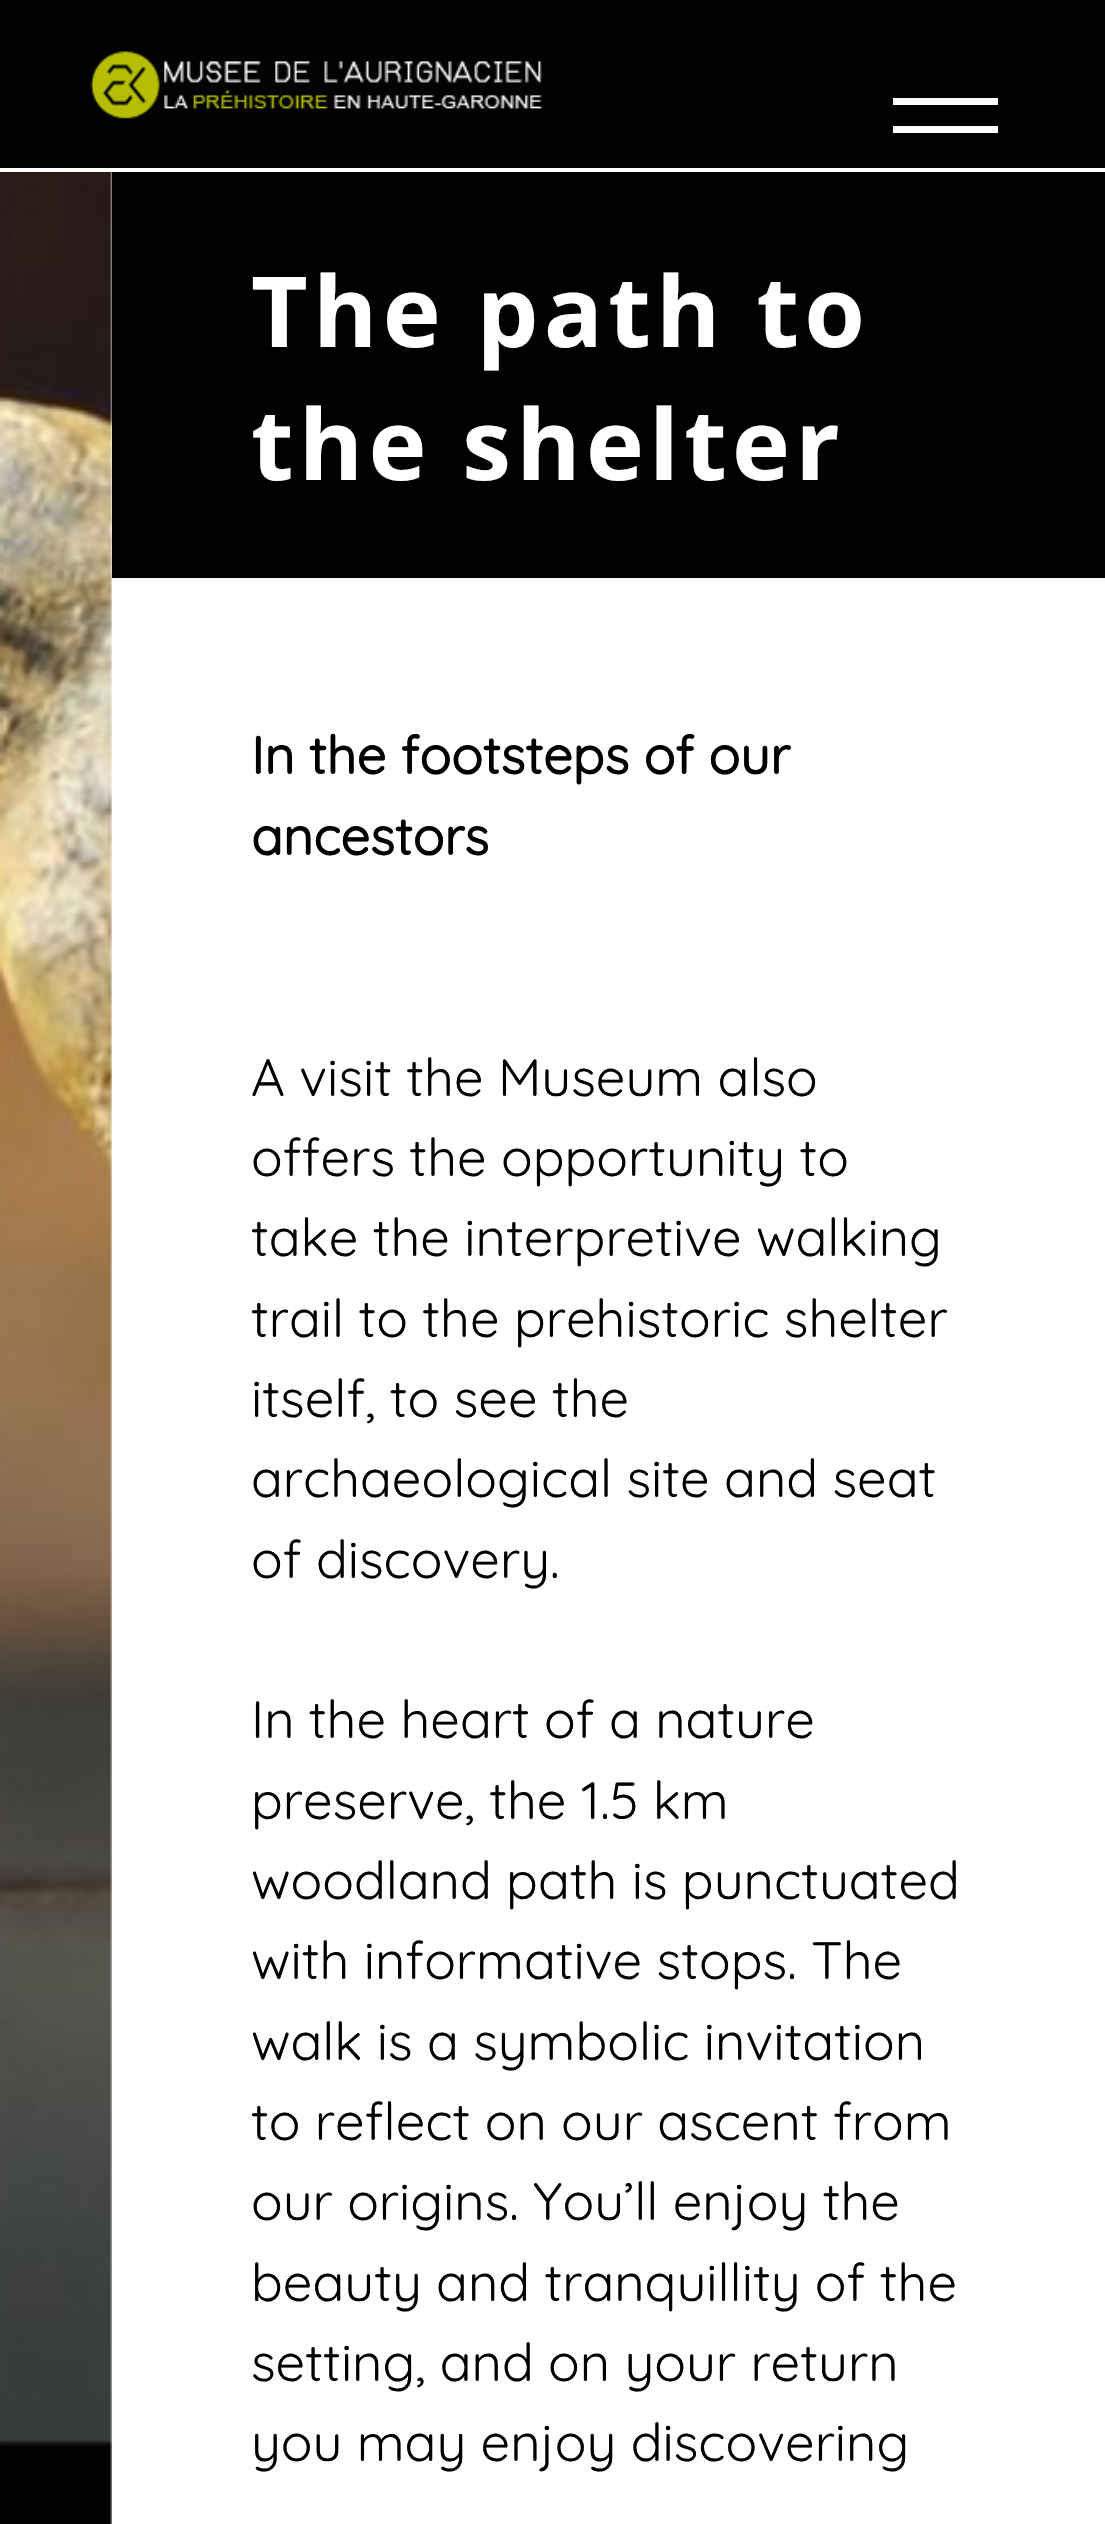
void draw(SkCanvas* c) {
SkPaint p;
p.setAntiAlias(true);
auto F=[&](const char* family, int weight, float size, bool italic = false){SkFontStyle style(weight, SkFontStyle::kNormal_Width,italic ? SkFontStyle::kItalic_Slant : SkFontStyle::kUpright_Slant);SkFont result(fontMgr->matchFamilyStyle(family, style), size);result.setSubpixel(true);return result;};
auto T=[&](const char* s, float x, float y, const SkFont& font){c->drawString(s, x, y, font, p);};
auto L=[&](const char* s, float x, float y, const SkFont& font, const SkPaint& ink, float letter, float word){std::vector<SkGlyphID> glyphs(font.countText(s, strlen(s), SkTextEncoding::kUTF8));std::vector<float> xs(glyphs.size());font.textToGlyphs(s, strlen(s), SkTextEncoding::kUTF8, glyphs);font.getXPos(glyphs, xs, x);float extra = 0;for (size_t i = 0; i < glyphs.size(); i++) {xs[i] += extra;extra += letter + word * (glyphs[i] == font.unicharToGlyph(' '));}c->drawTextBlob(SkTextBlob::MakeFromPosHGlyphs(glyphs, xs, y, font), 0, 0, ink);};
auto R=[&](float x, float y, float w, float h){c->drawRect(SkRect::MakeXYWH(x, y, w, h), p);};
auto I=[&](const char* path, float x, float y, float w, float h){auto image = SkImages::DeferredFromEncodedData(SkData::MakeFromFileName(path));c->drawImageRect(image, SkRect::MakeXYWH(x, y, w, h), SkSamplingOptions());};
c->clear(0xffffffff);
p.setColor(0xff000000);
R(0,0,1105,168);
I("1.png",90,51,452,68);
p.setColor(0xffffffff);
R(893,98,105,7);
R(893,126,105,7);
I("2.png",0,172,112,2352);
p.setColor(0xff000000);
R(112,172,993,406);
auto f1 = F("Open Sans",700,98);
p.setColor(0xffffffff);
L("The path to",251,347,f1,p,5.25,0);
L("the shelter",251,480,f1,p,5.25,0);
auto f2 = F("Quicksand",700,52.5);
p.setColor(0xff000000);
T("In the footsteps of our",251,774,f2);
T("ancestors",251,855,f2);
auto f3 = F("Quicksand",400,52.5);
T("A visit the Museum also",251,1096,f3);
T("offers the opportunity to",251,1176,f3);
T("take the interpretive walking",251,1256,f3);
T("trail to the prehistoric shelter",251,1337,f3);
T("itself, to see the",251,1417,f3);
T("archaeological site and seat",251,1497,f3);
T("of discovery.",251,1578,f3);
T("In the heart of a nature",251,1738,f3);
T("preserve, the 1.5 km",251,1819,f3);
T("woodland path is punctuated",251,1899,f3);
T("with informative stops. The",251,1979,f3);
T("walk is a symbolic invitation",251,2060,f3);
T("to reflect on our ascent from",251,2140,f3);
T("our origins. You’ll enjoy the",251,2220,f3);
T("beauty and tranquillity of the",251,2301,f3);
T("setting, and on your return",251,2381,f3);
T("you may enjoy discovering",251,2461,f3);
}
